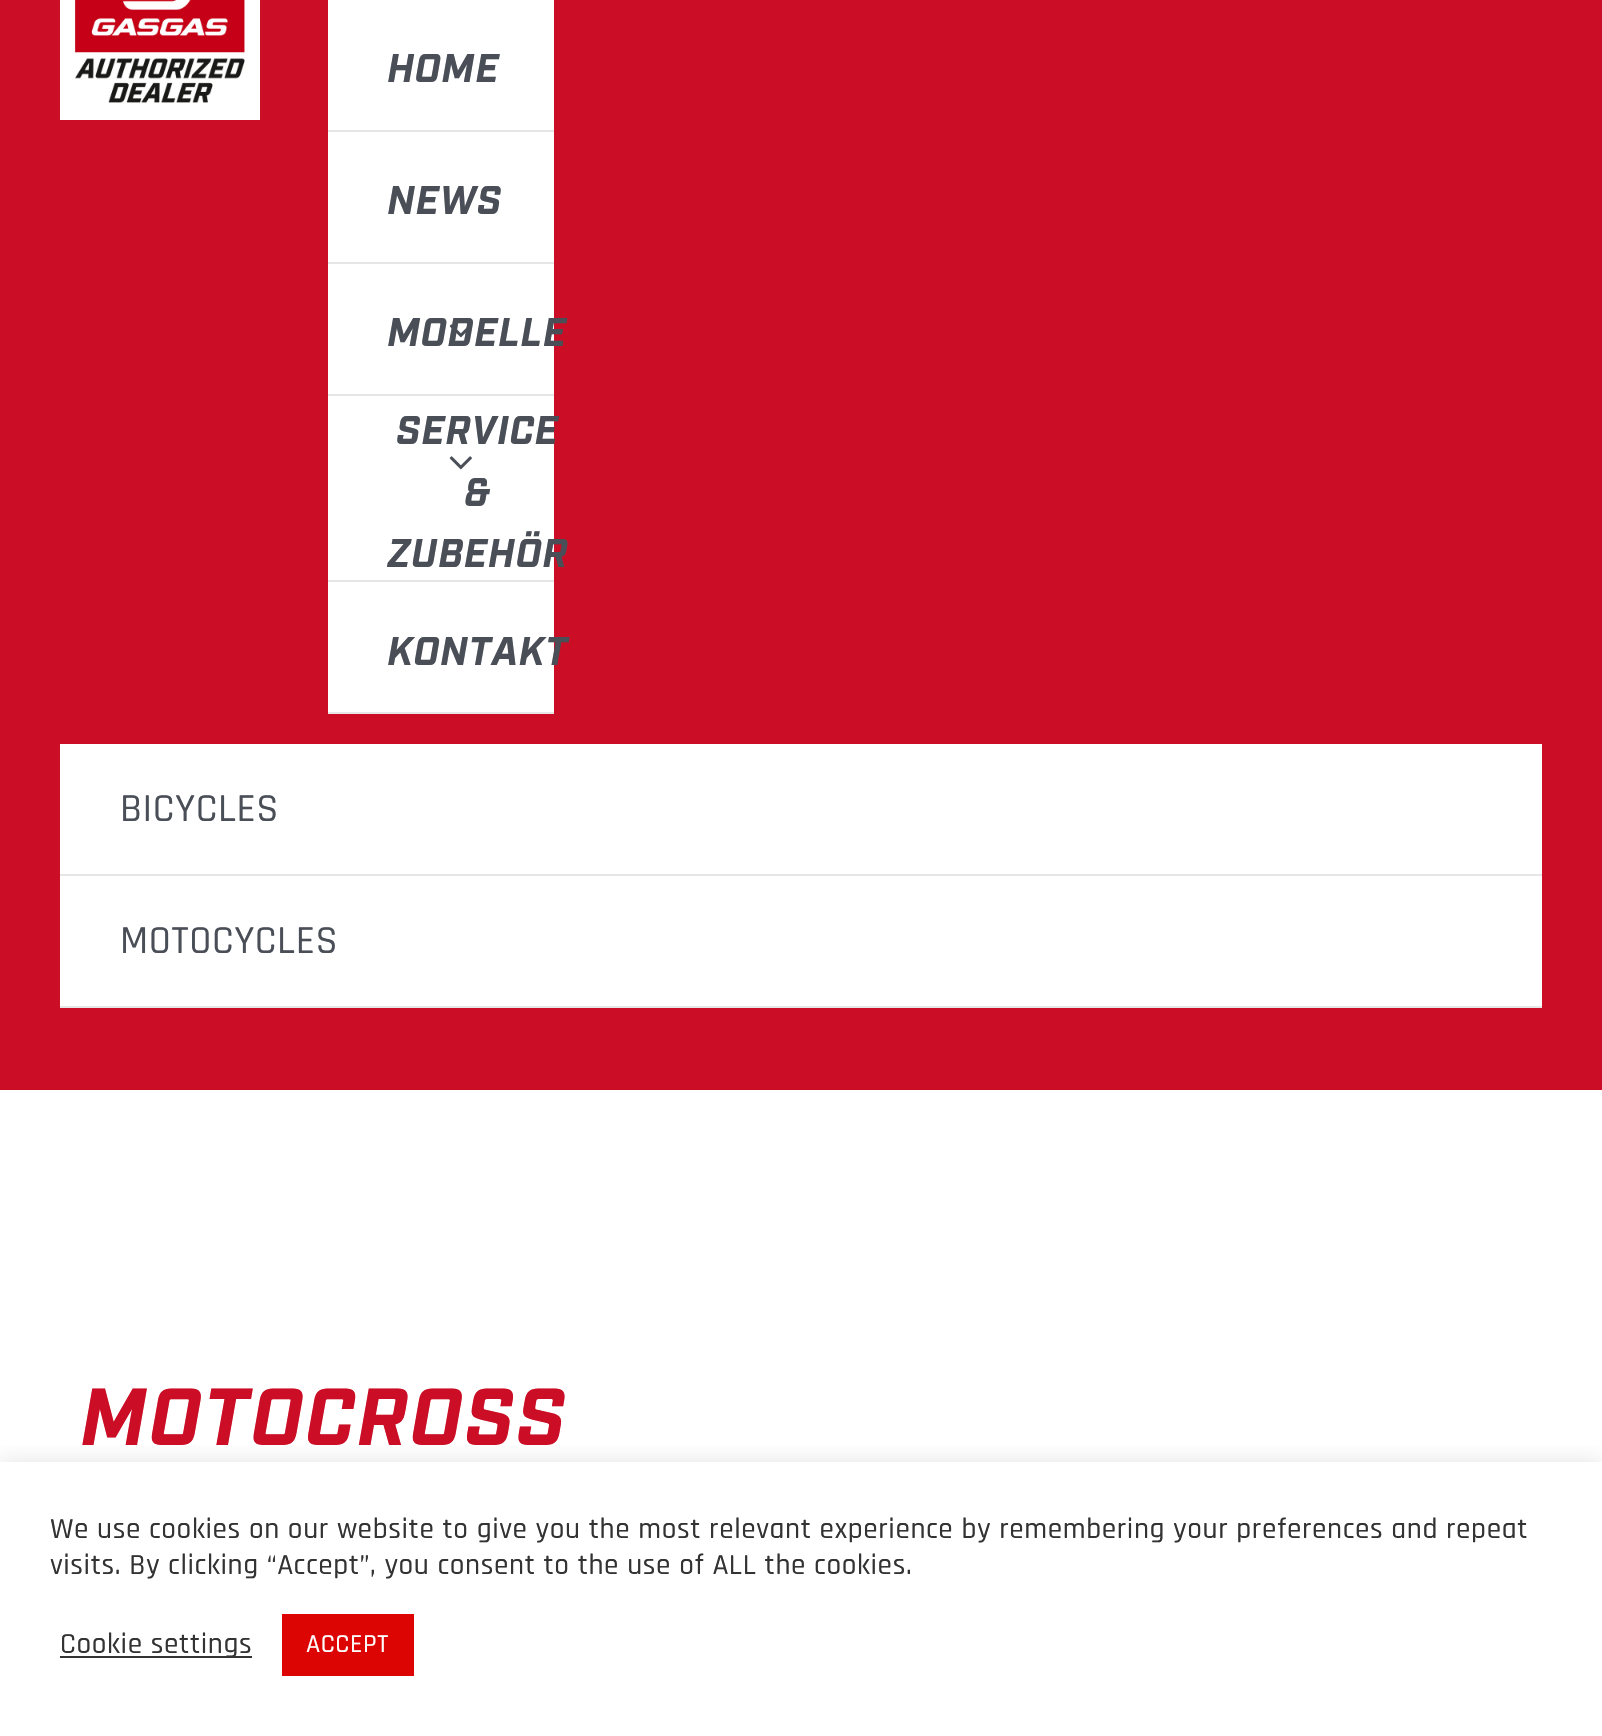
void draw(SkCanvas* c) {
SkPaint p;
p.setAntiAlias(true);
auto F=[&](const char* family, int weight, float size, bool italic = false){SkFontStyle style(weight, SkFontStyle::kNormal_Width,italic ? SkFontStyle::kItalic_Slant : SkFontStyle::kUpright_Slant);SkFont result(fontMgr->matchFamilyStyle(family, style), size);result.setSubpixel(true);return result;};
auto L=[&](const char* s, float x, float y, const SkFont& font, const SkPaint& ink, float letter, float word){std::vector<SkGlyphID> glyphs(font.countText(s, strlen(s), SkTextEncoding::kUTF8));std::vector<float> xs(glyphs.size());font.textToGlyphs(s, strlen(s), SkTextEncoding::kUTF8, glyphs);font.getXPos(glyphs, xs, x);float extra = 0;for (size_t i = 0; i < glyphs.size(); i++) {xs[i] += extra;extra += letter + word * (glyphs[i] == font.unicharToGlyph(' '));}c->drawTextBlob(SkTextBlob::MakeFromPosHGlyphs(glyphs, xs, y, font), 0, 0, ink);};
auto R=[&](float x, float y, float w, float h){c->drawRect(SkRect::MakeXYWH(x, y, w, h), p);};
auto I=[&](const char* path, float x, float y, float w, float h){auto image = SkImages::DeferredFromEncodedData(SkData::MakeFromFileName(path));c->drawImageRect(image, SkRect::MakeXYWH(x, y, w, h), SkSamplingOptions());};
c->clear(0xffffffff);
p.setColor(0xffcb0d25);
R(0,0,1602,1090);
I("1.png",60,0,200,120);
p.setColor(0xffffffff);
R(328,0,226,712);
p.setColor(0xffe6e6e6);
R(328,130,226,2);
auto f1 = F("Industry",700,40,true);
p.setColor(0xff4a4e57);
L("HOME",387,82,f1,p,.6,0);
p.setColor(0xffe6e6e6);
R(328,262,226,2);
p.setColor(0xff4a4e57);
L("NEWS",387,214,f1,p,.6,0);
p.setColor(0xffe6e6e6);
R(328,394,226,2);
p.setColor(0xff4a4e57);
L("MODELLE",387,346,f1,p,.6,0);
I("2.png",449,324,18,14);
p.setColor(0xffe6e6e6);
R(328,580,226,2);
p.setColor(0xff4a4e57);
L("SERVICE",396,444,f1,p,.6,0);
L("&",464,506,f1,p,.6,0);
L("ZUBEHÖR",387,567,f1,p,.6,0);
I("3.png",449,456,23,14);
p.setColor(0xffe6e6e6);
R(328,712,226,2);
p.setColor(0xff4a4e57);
L("KONTAKT",387,665,f1,p,.6,0);
p.setColor(0xffffffff);
R(60,744,1482,262);
p.setColor(0xffe6e6e6);
R(60,874,1482,2);
auto f2 = F("Rajdhani",500,40);
p.setColor(0xff4a4e57);
L("BICYCLES",120,821,f2,p,.6,0);
p.setColor(0xffe6e6e6);
R(60,1006,1482,2);
p.setColor(0xff4a4e57);
L("MOTOCYCLES",120,953,f2,p,.6,0);
auto f3 = F("Industry",700,80.75,true);
p.setColor(0xffcb0d25);
L("MOTOCROSS",80,1445,f3,p,2,0);
c->save();
c->clipRect(SkRect::MakeXYWH(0,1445,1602,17));
p.setColor(0x4dacabab);
p.setMaskFilter(SkMaskFilter::MakeBlur(kNormal_SkBlurStyle, 10));
c->drawRect(SkRect::MakeXYWH(0,1460,1602,274),p);
p.setMaskFilter(nullptr);
c->restore();
auto f4 = F("Rajdhani",500,29.33);
p.setColor(0xff333333);
L("We use cookies on our website to give you the most relevant experience by remembering your preferences and repeat",50,1538,f4,p,.6,0);
L("visits. By clicking “Accept”, you consent to the use of ALL the cookies.",50,1574,f4,p,.6,0);
R(60,1656,192,2);
L("Cookie settings",60,1653,f4,p,.6,0);
p.setColor(0xffdd0404);
R(282,1614,132,62);
auto f5 = F("Rajdhani",500,26);
p.setColor(0xffffffff);
L("ACCEPT",306,1652,f5,p,.6,0);
}
